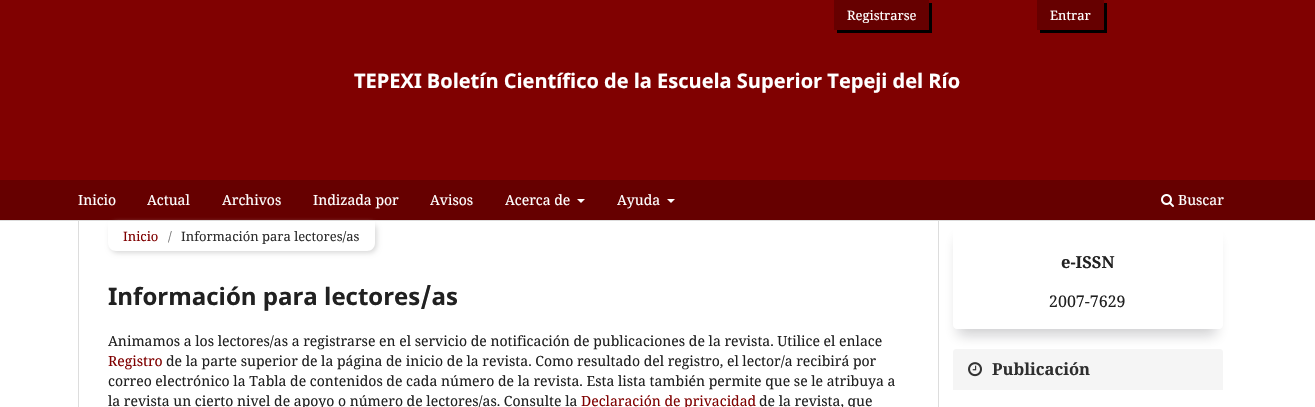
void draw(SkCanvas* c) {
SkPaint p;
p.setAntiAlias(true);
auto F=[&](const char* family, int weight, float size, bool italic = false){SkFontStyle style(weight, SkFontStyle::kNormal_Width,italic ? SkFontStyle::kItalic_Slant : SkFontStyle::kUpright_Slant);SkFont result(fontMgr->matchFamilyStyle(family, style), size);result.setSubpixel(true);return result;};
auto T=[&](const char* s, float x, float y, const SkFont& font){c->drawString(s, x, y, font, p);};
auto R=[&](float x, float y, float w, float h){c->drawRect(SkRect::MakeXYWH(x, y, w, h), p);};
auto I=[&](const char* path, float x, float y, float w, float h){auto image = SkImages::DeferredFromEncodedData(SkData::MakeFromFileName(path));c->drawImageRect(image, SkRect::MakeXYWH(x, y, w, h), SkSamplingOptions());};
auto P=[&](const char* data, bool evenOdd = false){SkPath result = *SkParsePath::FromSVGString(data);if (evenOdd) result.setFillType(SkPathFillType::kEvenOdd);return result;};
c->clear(0xffffffff);
p.setColor(0xff800101);
R(0,0,1315,180);
p.setColor(0xffdddddd);
R(0,220,1315,1);
p.setColor(0xff000000);
c->drawPath(P("M837 30v3h95v-30h-3v27z"),p);
p.setColor(0xff660000);
R(834,0,95,30);
auto f1 = F("Noto Serif",400,13);
p.setColor(0xffffffff);
T("Registrarse",847,20,f1);
p.setColor(0xff000000);
c->drawPath(P("M1040 30v3h67v-30h-3v27z"),p);
p.setColor(0xff660000);
R(1037,0,67,30);
p.setColor(0xffffffff);
T("Entrar",1050,20,f1);
p.setColor(0xff660000);
R(0,180,1315,40);
auto f2 = F("Noto Serif",400,14);
p.setColor(0xffffffff);
T("Inicio",78,205,f2);
T("Actual",147,205,f2);
T("Archivos",222,205,f2);
T("Indizada por",313,205,f2);
T("Avisos",430,205,f2);
T("Acerca de",505,205,f2);
c->drawPath(P("M577 199h8l-4 4z"),p);
T("Ayuda",617,205,f2);
c->drawPath(P("M667 199h8l-4 4z"),p);
I("1.png",1161,194,13,13);
T("Buscar",1178,205,f2);
auto f3 = F("Noto Sans",700,20);
T("TEPEXI Boletín Científico de la Escuela Superior Tepeji del Río",354,88,f3);
p.setColor(0xffdddddd);
R(78,221,1,186);
p.setColor(0xffd9d9d9);
p.setMaskFilter(SkMaskFilter::MakeBlur(kNormal_SkBlurStyle, 2.5));
c->drawRoundRect(SkRect::MakeXYWH(110,223,267,30),8,8,p);
p.setMaskFilter(nullptr);
p.setColor(0xffffffff);
c->drawPath(P("M108 221h267v22c0 4.5-3.5 8-8 8h-251c-4.5 0-8-3.5-8-8z"),p);
p.setColor(0xff800101);
T("Inicio",123,241,f1);
p.setColor(0xff757575);
T("/",168,241,f1);
p.setColor(0xff2f2f2f);
T("Información para lectores/as",181,241,f1);
auto f4 = F("Noto Sans",700,24);
p.setColor(0xff212121);
T("Información para lectores/as",108,305,f4);
T("Animamos a los lectores/as a registrarse en el servicio de notificación de publicaciones de la revista. Utilice el enlace",108,346,f2);
p.setColor(0xff800101);
T("Registro",108,366,f2);
p.setColor(0xff212121);
T("de la parte superior de la página de inicio de la revista. Como resultado del registro, el lector/a recibirá por",166,366,f2);
T("correo electrónico la Tabla de contenidos de cada número de la revista. Esta lista también permite que se le atribuya a",108,386,f2);
T("la revista un cierto nivel de apoyo o número de lectores/as. Consulte la",108,406,f2);
p.setColor(0xff800101);
T("Declaración de privacidad",581,406,f2);
p.setColor(0xff212121);
T("de la revista, que",759,406,f2);
c->save();
c->clipPath(P("M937 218h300v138h-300zm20 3h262c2 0 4 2 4 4v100c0 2-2 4-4 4h-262c-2 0-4-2-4-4v-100c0-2 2-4 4-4z",true),true);
p.setColor(0x330a0c14);
p.setMaskFilter(SkMaskFilter::MakeBlur(kNormal_SkBlurStyle, 6.5));
c->drawRect(SkRect::MakeXYWH(958,239,258,96),p);
p.setMaskFilter(nullptr);
c->restore();
p.setColor(0xffdddddd);
R(938,221,1,186);
auto f5 = F("Noto Serif",700,16.5);
p.setColor(0xff212121);
T("e-ISSN",1061,268,f5);
auto f6 = F("Noto Serif",400,16);
T("2007-7629",1049,307,f6);
p.setColor(0xfff5f5f5);
c->drawPath(P("M956 349h264c1.5 0 3 1.5 3 3v38h-270v-38c0-1.5 1.5-3 3-3z"),p);
I("2.png",968,362,14,15);
p.setColor(0xff2f2f2f);
T("Publicación",992,375,f5);
}
